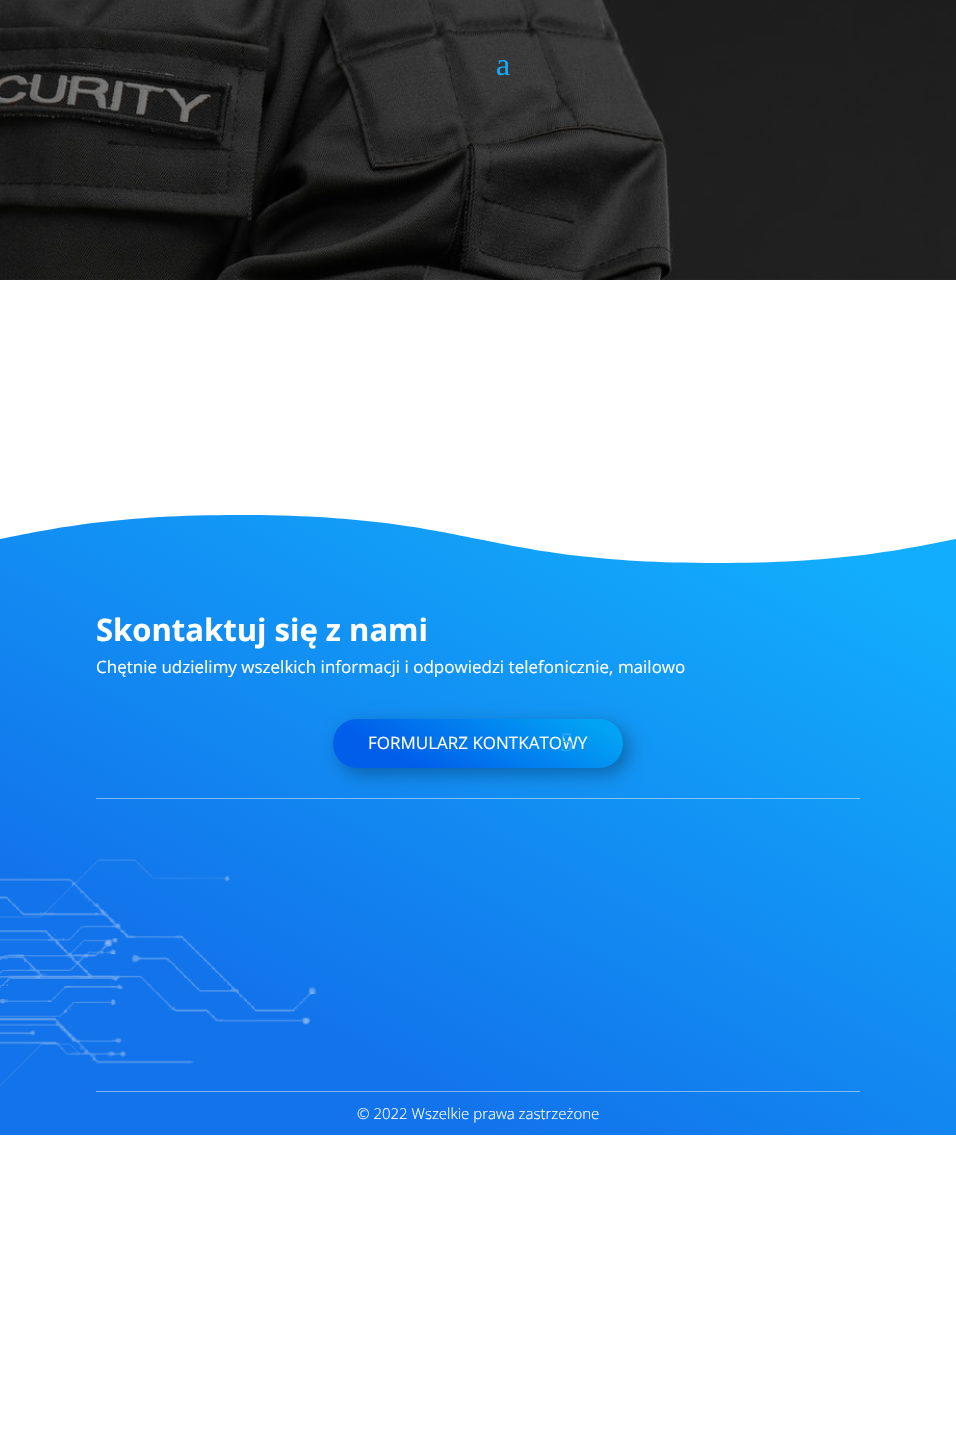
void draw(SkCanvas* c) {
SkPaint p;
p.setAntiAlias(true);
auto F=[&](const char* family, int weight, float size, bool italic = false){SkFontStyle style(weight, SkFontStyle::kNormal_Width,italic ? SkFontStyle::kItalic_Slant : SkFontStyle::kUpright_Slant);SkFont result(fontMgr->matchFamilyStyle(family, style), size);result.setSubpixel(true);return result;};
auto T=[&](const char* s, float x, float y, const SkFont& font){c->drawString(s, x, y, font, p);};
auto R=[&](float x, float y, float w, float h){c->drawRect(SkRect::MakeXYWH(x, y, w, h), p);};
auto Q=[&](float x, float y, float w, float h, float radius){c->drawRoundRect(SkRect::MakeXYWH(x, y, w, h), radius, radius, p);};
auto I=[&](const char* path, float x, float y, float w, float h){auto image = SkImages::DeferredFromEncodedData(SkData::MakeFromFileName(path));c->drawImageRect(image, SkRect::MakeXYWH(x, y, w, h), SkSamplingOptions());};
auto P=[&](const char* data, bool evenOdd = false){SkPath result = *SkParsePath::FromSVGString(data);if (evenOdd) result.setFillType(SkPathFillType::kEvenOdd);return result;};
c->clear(0xffffffff);
I("1.png",0,0,956,280);
auto f1 = F("Liberation Serif",400,32);
p.setColor(0xff12adfc);
T("a",496,75,f1);
I("2.png",0,515,956,620);
p.setColor(0xffffffff);
c->drawPath(P("M239 515c-119 0-179 12-239 24v-40h956v40c-60 12-120 24-239 24c-239 0-239-48-478-48z"),p);
p.setColor(0x73ffffff);
R(96,798,764,1);
auto f2 = F("Open Sans",700,31);
p.setColor(0xffffffff);
T("Skontaktuj się z nami",96,641,f2);
auto f3 = F("Open Sans",400,17);
T("Chętnie udzielimy wszelkich informacji i odpowiedzi telefonicznie, mailowo",96,673,f3);
p.setColor(0x4d000000);
p.setMaskFilter(SkMaskFilter::MakeBlur(kNormal_SkBlurStyle, 9));
c->drawRoundRect(SkRect::MakeXYWH(339,725,290,49),24,24,p);
p.setMaskFilter(nullptr);
{
const SkColor colors[] = {0xff015eea,0xff02a3f4};
const float stops[] = {.23,.9};
const SkPoint ends[] = {{436,823}, {520,664}};
p.setShader(SkGradientShader::MakeLinear(ends, colors, stops, 2, SkTileMode::kClamp));
p.setAlpha(255);
}
Q(333,719,290,49,24);
p.setShader(nullptr);
p.setColor(0xffffffff);
T("FORMULARZ KONTKATOWY",368,749,f3);
auto f4 = F("Liberation Serif",400,27);
p.setColor(0xff29a3f4);
T("5",560,751,f4);
p.setColor(0x73ffffff);
R(96,1091,764,1);
auto f5 = F("Open Sans",300,15);
p.setColor(0xffffffff);
T("© 2022 Wszelkie prawa zastrzeżone",357,1119,f5);
}
